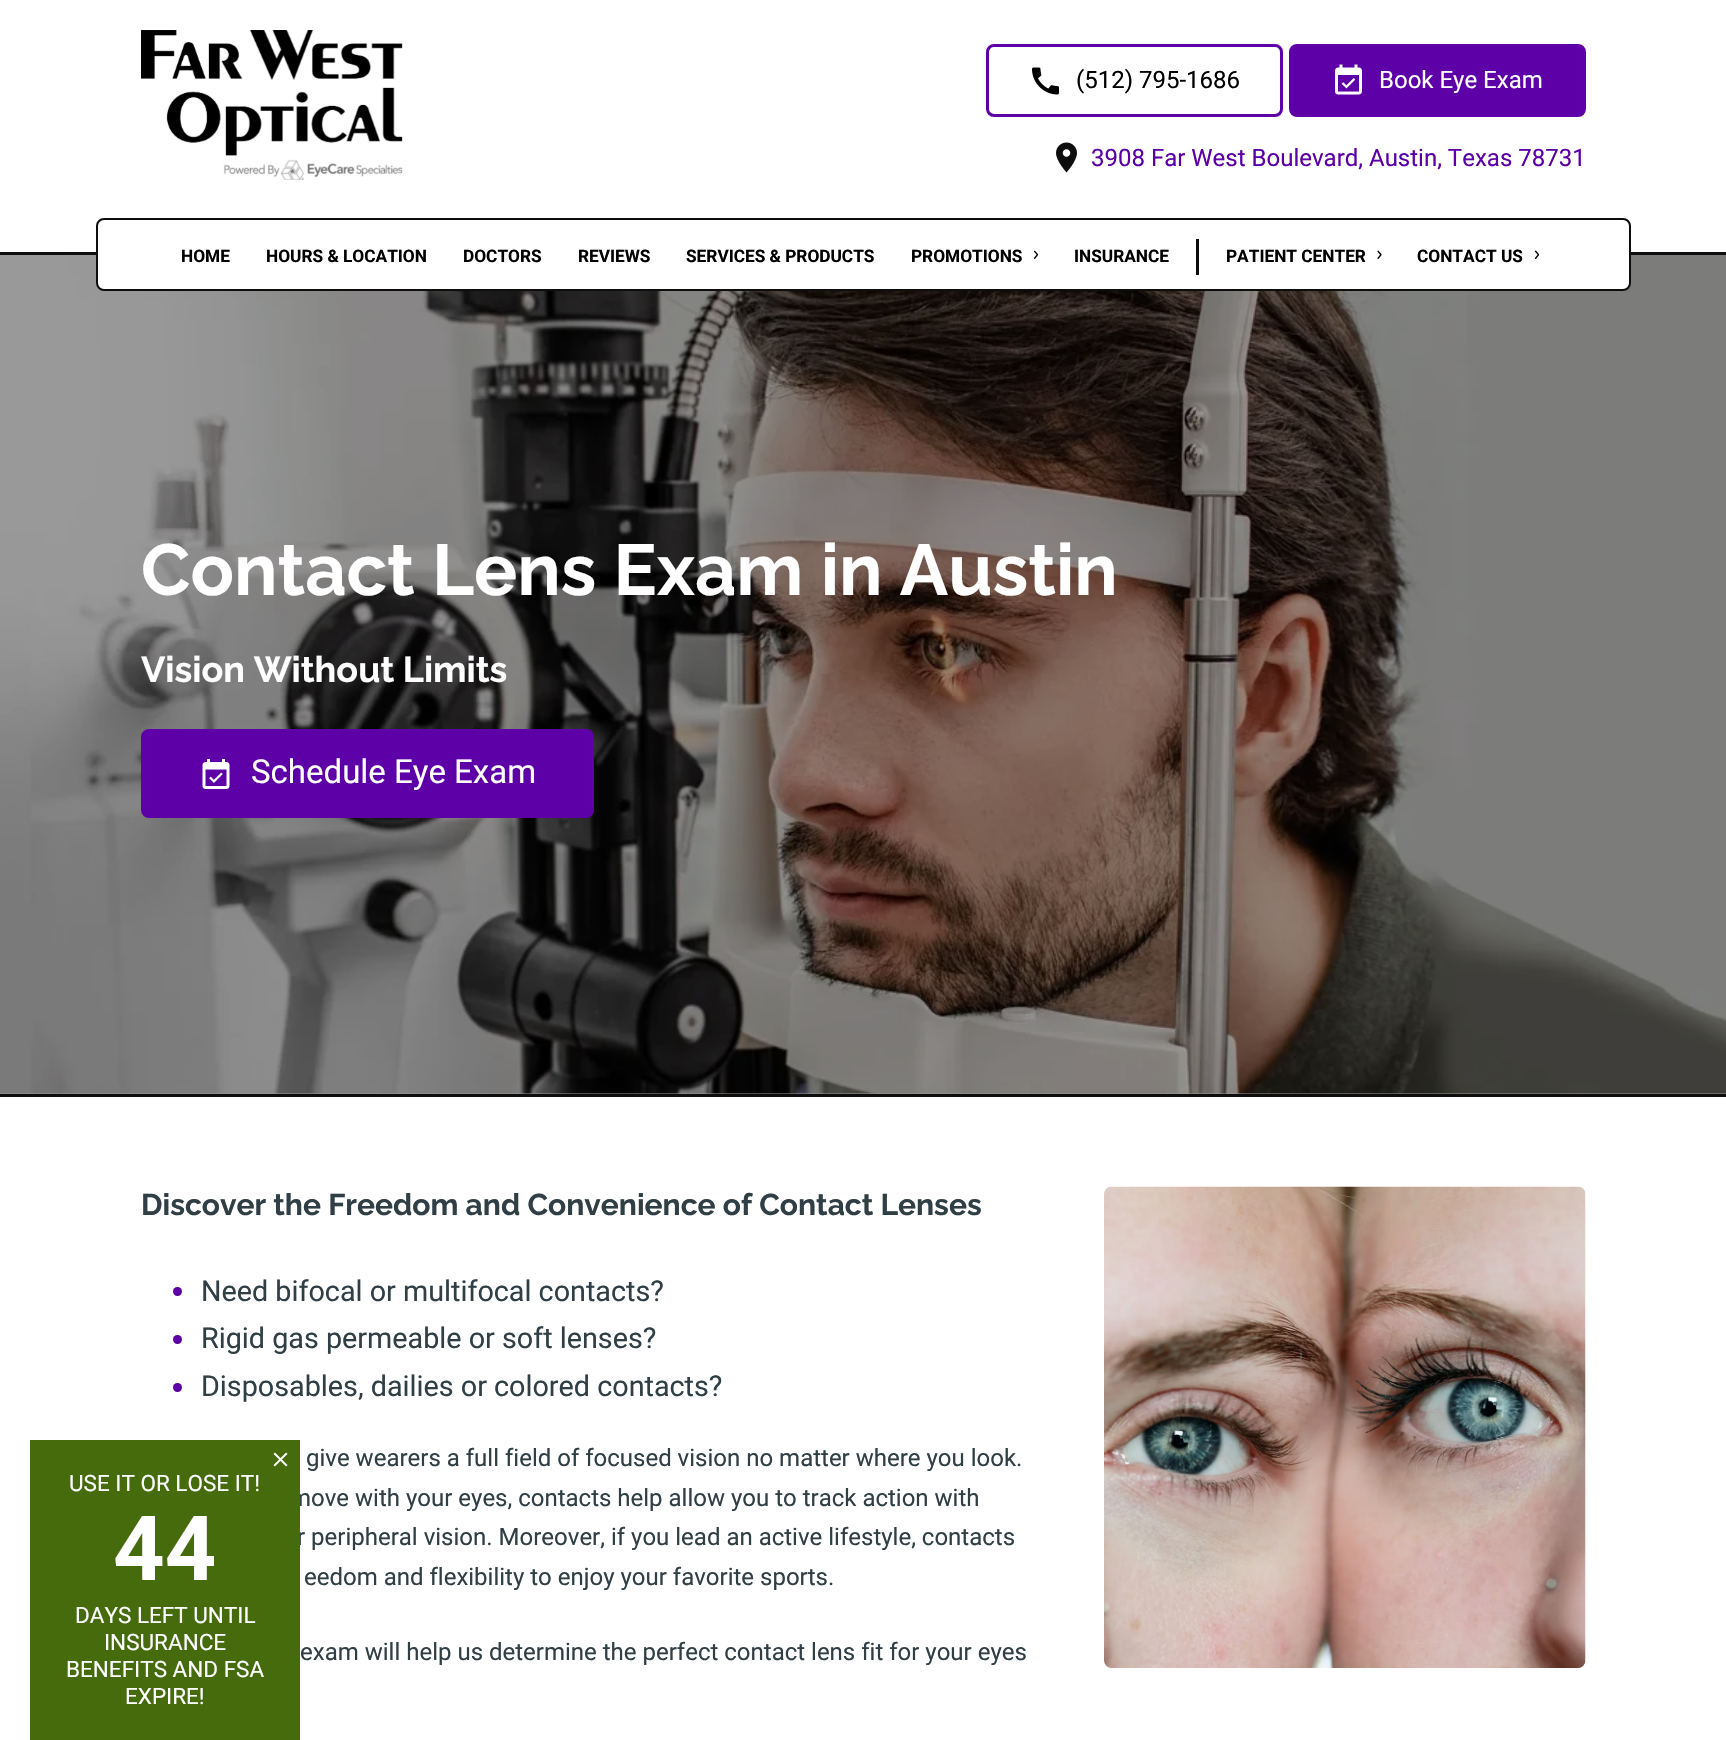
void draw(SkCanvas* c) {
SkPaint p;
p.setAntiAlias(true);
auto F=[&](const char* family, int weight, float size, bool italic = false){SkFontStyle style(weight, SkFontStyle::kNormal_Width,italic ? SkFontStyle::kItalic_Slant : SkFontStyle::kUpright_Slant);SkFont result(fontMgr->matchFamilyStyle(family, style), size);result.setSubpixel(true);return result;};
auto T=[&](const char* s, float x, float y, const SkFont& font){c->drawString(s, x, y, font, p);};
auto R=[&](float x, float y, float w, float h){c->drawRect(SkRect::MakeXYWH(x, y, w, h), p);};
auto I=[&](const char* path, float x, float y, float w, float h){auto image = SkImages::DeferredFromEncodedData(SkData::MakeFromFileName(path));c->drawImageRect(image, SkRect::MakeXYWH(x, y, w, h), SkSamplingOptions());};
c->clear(0xffffffff);
p.setColor(0xff999999);
R(0,1093,1726,1);
p.setColor(0xff0d0d0d);
R(0,252,1726,3);
I("1.png",141,30,262,150);
p.setStroke(true);
p.setStrokeWidth(3);
p.setColor(0xff5d00a8);
c->drawRoundRect(SkRect::MakeXYWH(987.5,45.5,294,70),6.5,6.5,p);
I("2.png",1032,67,27,28);
auto f1 = F("Roboto",400,24);
p.setStroke(false);
p.setColor(0xff000000);
T("(512) 795-1686",1076,88,f1);
p.setColor(0xff5d00a8);
c->drawRoundRect(SkRect::MakeXYWH(1290.5,45.5,294,70),6.5,6.5,p);
p.setStroke(true);
c->drawRoundRect(SkRect::MakeXYWH(1290.5,45.5,294,70),6.5,6.5,p);
I("3.png",1335,64,27,31);
p.setStroke(false);
p.setColor(0xffffffff);
T("Book Eye Exam",1379,88,f1);
I("4.png",1056,142,21,31);
p.setColor(0xff5d00a8);
T("3908 Far West Boulevard, Austin, Texas 78731",1091,166,f1);
I("7.png",0,255,1726,839);
p.setColor(0xffffffff);
c->drawRoundRect(SkRect::MakeXYWH(97,219,1533,71),7,7,p);
p.setStroke(true);
p.setStrokeWidth(2);
p.setColor(0xff0d0d0d);
c->drawRoundRect(SkRect::MakeXYWH(97,219,1533,71),7,7,p);
auto f2 = F("Roboto",700,17.25);
p.setStroke(false);
p.setColor(0xff000000);
T("HOME",181,262,f2);
T("HOURS & LOCATION",266,262,f2);
T("DOCTORS",463,262,f2);
T("REVIEWS",578,262,f2);
T("SERVICES & PRODUCTS",686,262,f2);
T("PROMOTIONS",911,262,f2);
I("5.png",1033,250,6,9);
p.setColor(0xff0d0d0d);
R(1196,239,3,36);
p.setColor(0xff000000);
T("INSURANCE",1074,262,f2);
T("PATIENT CENTER",1226,262,f2);
I("6.png",1377,250,5,9);
T("CONTACT US",1417,262,f2);
I("5.png",1534,250,6,9);
p.setColor(0xff0d0d0d);
R(0,1094,1726,3);
auto f3 = F("Raleway",700,72);
p.setColor(0xffffffff);
T("Contact Lens Exam in Austin",141,595,f3);
auto f4 = F("Raleway",700,36);
T("Vision Without Limits",141,682,f4);
p.setColor(0xff5d00a8);
c->drawRoundRect(SkRect::MakeXYWH(142.5,730.5,450,86),6.5,6.5,p);
p.setStroke(true);
p.setStrokeWidth(3);
c->drawRoundRect(SkRect::MakeXYWH(142.5,730.5,450,86),6.5,6.5,p);
I("8.png",202,759,28,30);
auto f5 = F("Roboto",400,33);
p.setStroke(false);
p.setColor(0xffffffff);
T("Schedule Eye Exam",251,783,f5);
auto f6 = F("Raleway",700,30);
p.setColor(0xff303f45);
T("Discover the Freedom and Convenience of Contact Lenses",141,1215,f6);
p.setColor(0xff5d00a8);
c->drawCircle(177.5,1291.5,4.5,p);
auto f7 = F("Roboto",400,28.75);
p.setColor(0xff303f45);
T("Need bifocal or multifocal contacts?",201,1301,f7);
p.setColor(0xff5d00a8);
c->drawCircle(177.5,1339.5,4.5,p);
p.setColor(0xff303f45);
T("Rigid gas permeable or soft lenses?",201,1348,f7);
p.setColor(0xff5d00a8);
c->drawCircle(177.5,1387.5,4.5,p);
p.setColor(0xff303f45);
T("Disposables, dailies or colored contacts?",201,1396,f7);
T("give wearers a full field of focused vision no matter where you look.",306,1466,f1);
T("move with your eyes, contacts help allow you to track action with",290,1506,f1);
T("r peripheral vision. Moreover, if you lead an active lifestyle, contacts",297,1545,f1);
T("eedom and flexibility to enjoy your favorite sports.",304,1585,f1);
T("exam will help us determine the perfect contact lens fit for your eyes",300,1660,f1);
I("9.png",1104,1186,482,482);
p.setColor(0xff456b0c);
R(30,1440,270,300);
I("10.png",273,1452,15,15);
auto f8 = F("Roboto",400,22.5);
p.setColor(0xffffffff);
T("USE IT OR LOSE IT!",69,1491,f8);
auto f9 = F("Roboto",700,90);
T("44",113,1580,f9);
T("DAYS LEFT UNTIL",75,1623,f8);
T("INSURANCE",104,1650,f8);
T("BENEFITS AND FSA",66,1677,f8);
T("EXPIRE!",125,1704,f8);
}
